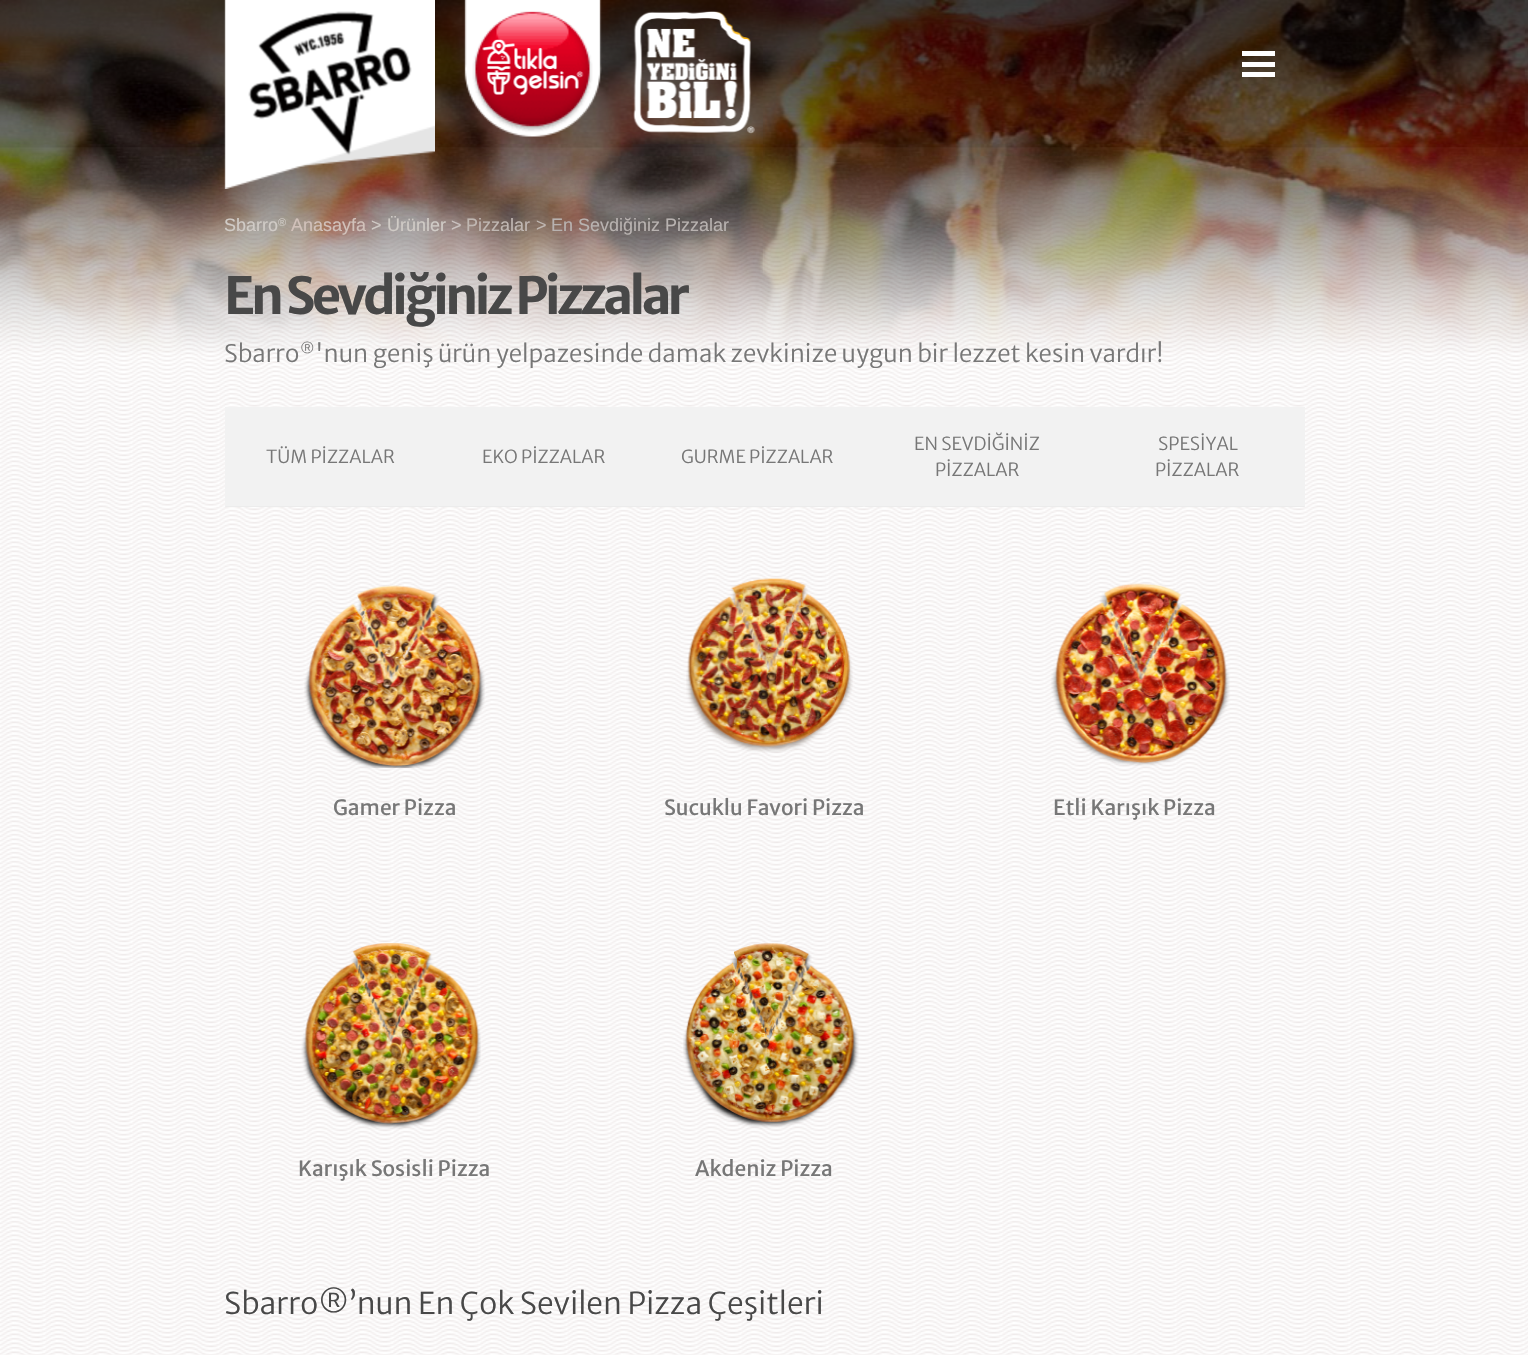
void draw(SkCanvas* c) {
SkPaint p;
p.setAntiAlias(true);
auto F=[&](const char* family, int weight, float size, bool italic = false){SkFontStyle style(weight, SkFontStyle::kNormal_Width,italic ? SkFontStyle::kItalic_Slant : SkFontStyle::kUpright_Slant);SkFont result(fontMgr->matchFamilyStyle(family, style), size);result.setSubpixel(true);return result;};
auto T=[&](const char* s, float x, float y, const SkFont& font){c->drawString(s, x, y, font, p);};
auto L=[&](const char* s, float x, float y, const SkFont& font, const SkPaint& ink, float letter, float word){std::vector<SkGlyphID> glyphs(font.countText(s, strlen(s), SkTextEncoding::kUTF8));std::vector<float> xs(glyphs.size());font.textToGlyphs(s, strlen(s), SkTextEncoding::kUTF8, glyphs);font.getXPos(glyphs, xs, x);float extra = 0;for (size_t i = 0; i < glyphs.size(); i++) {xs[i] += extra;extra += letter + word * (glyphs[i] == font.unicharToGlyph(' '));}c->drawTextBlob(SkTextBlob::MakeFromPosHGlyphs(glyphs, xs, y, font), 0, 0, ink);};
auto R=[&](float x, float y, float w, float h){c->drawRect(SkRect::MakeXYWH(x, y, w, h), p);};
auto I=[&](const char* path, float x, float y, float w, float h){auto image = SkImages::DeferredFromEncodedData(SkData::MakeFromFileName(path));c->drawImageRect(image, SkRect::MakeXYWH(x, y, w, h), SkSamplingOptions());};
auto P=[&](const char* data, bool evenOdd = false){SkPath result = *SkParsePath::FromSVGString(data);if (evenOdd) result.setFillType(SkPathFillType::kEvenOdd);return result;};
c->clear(0xffffffff);
I("1.png",0,387,1528,968);
I("2.png",0,0,1528,357);
I("9.png",0,147,1528,240);
I("3.png",0,0,1528,148);
I("4.png",224,0,211,189);
I("5.png",248,11,164,144);
I("6.png",464,0,138,137);
I("7.png",482,39,102,57);
I("8.png",633,11,122,123);
p.setColor(0xffffffff);
R(1242,62,33,5);
R(1242,51,33,5);
R(1242,72,33,5);
auto f1 = F("Liberation Sans",400,18);
p.setColor(0xffd0cbc6);
T("Sbarro",224,231,f1);
auto f2 = F("Liberation Sans",400,11);
T("®",278,226,f2);
p.setColor(0xffd1c1ba);
T("Anasayfa",291,231,f1);
p.setColor(0xffd0cbc6);
T(">",371,231,f1);
T("Ürünler",387,231,f1);
p.setColor(0xffcbc3c1);
T(">",451,231,f1);
p.setColor(0xffc0b7b2);
T("Pizzalar",466,231,f1);
T(">",536,231,f1);
p.setColor(0xffb8b2b0);
T("En Sevdiğiniz Pizzalar",551,231,f1);
auto f3 = F("Merriweather Sans",700,51);
p.setColor(0xff484848);
L("En Sevdiğiniz Pizzalar",224,314,f3,p,-3.75,0);
auto f4 = F("Merriweather Sans",300,24);
p.setColor(0xff777777);
T("Sbarro",224,362,f4);
auto f5 = F("Merriweather Sans",300,14);
T("®",300,354,f5);
T("'nun geniş ürün yelpazesinde damak zevkinize uygun bir lezzet kesin vardır!",315,362,f4);
p.setColor(0xfff2f2f2);
R(225,407,1080,100);
p.setColor(0xffececec);
c->drawPath(P("M438 507h-213l1-1h210z"),p);
auto f6 = F("Merriweather Sans",300,18);
p.setColor(0xff777777);
T("TÜM PİZZALAR",266,463,f6);
p.setColor(0xffececec);
c->drawPath(P("M651 507h-213l2-1h210z"),p);
p.setColor(0xff777777);
T("EKO PİZZALAR",482,463,f6);
p.setColor(0xffececec);
c->drawPath(P("M864 507h-213l1-1h210z"),p);
p.setColor(0xff777777);
T("GURME PİZZALAR",681,463,f6);
p.setColor(0xffececec);
c->drawPath(P("M1090 507h-226l2-1h223z"),p);
p.setColor(0xff777777);
T("EN SEVDİĞİNİZ",914,450,f6);
T("PİZZALAR",935,476,f6);
p.setColor(0xffececec);
c->drawPath(P("M1305 507h-215l2-1h212z"),p);
p.setColor(0xff777777);
T("SPESİYAL",1158,450,f6);
T("PİZZALAR",1155,476,f6);
I("10.png",304,585,181,183);
auto f7 = F("Merriweather Sans",400,21);
T("Gamer Pizza",333,815,f7);
I("11.png",686,578,167,175);
T("Sucuklu Favori Pizza",664,815,f7);
I("12.png",1051,583,179,183);
T("Etli Karışık Pizza",1053,815,f7);
I("13.png",301,943,180,186);
T("Karışık Sosisli Pizza",298,1176,f7);
I("14.png",683,943,176,185);
T("Akdeniz Pizza",695,1176,f7);
auto f8 = F("Merriweather Sans",300,30);
p.setColor(0xff484848);
T("Sbarro®’nun En Çok Sevilen Pizza Çeşitleri",224,1314,f8);
}
